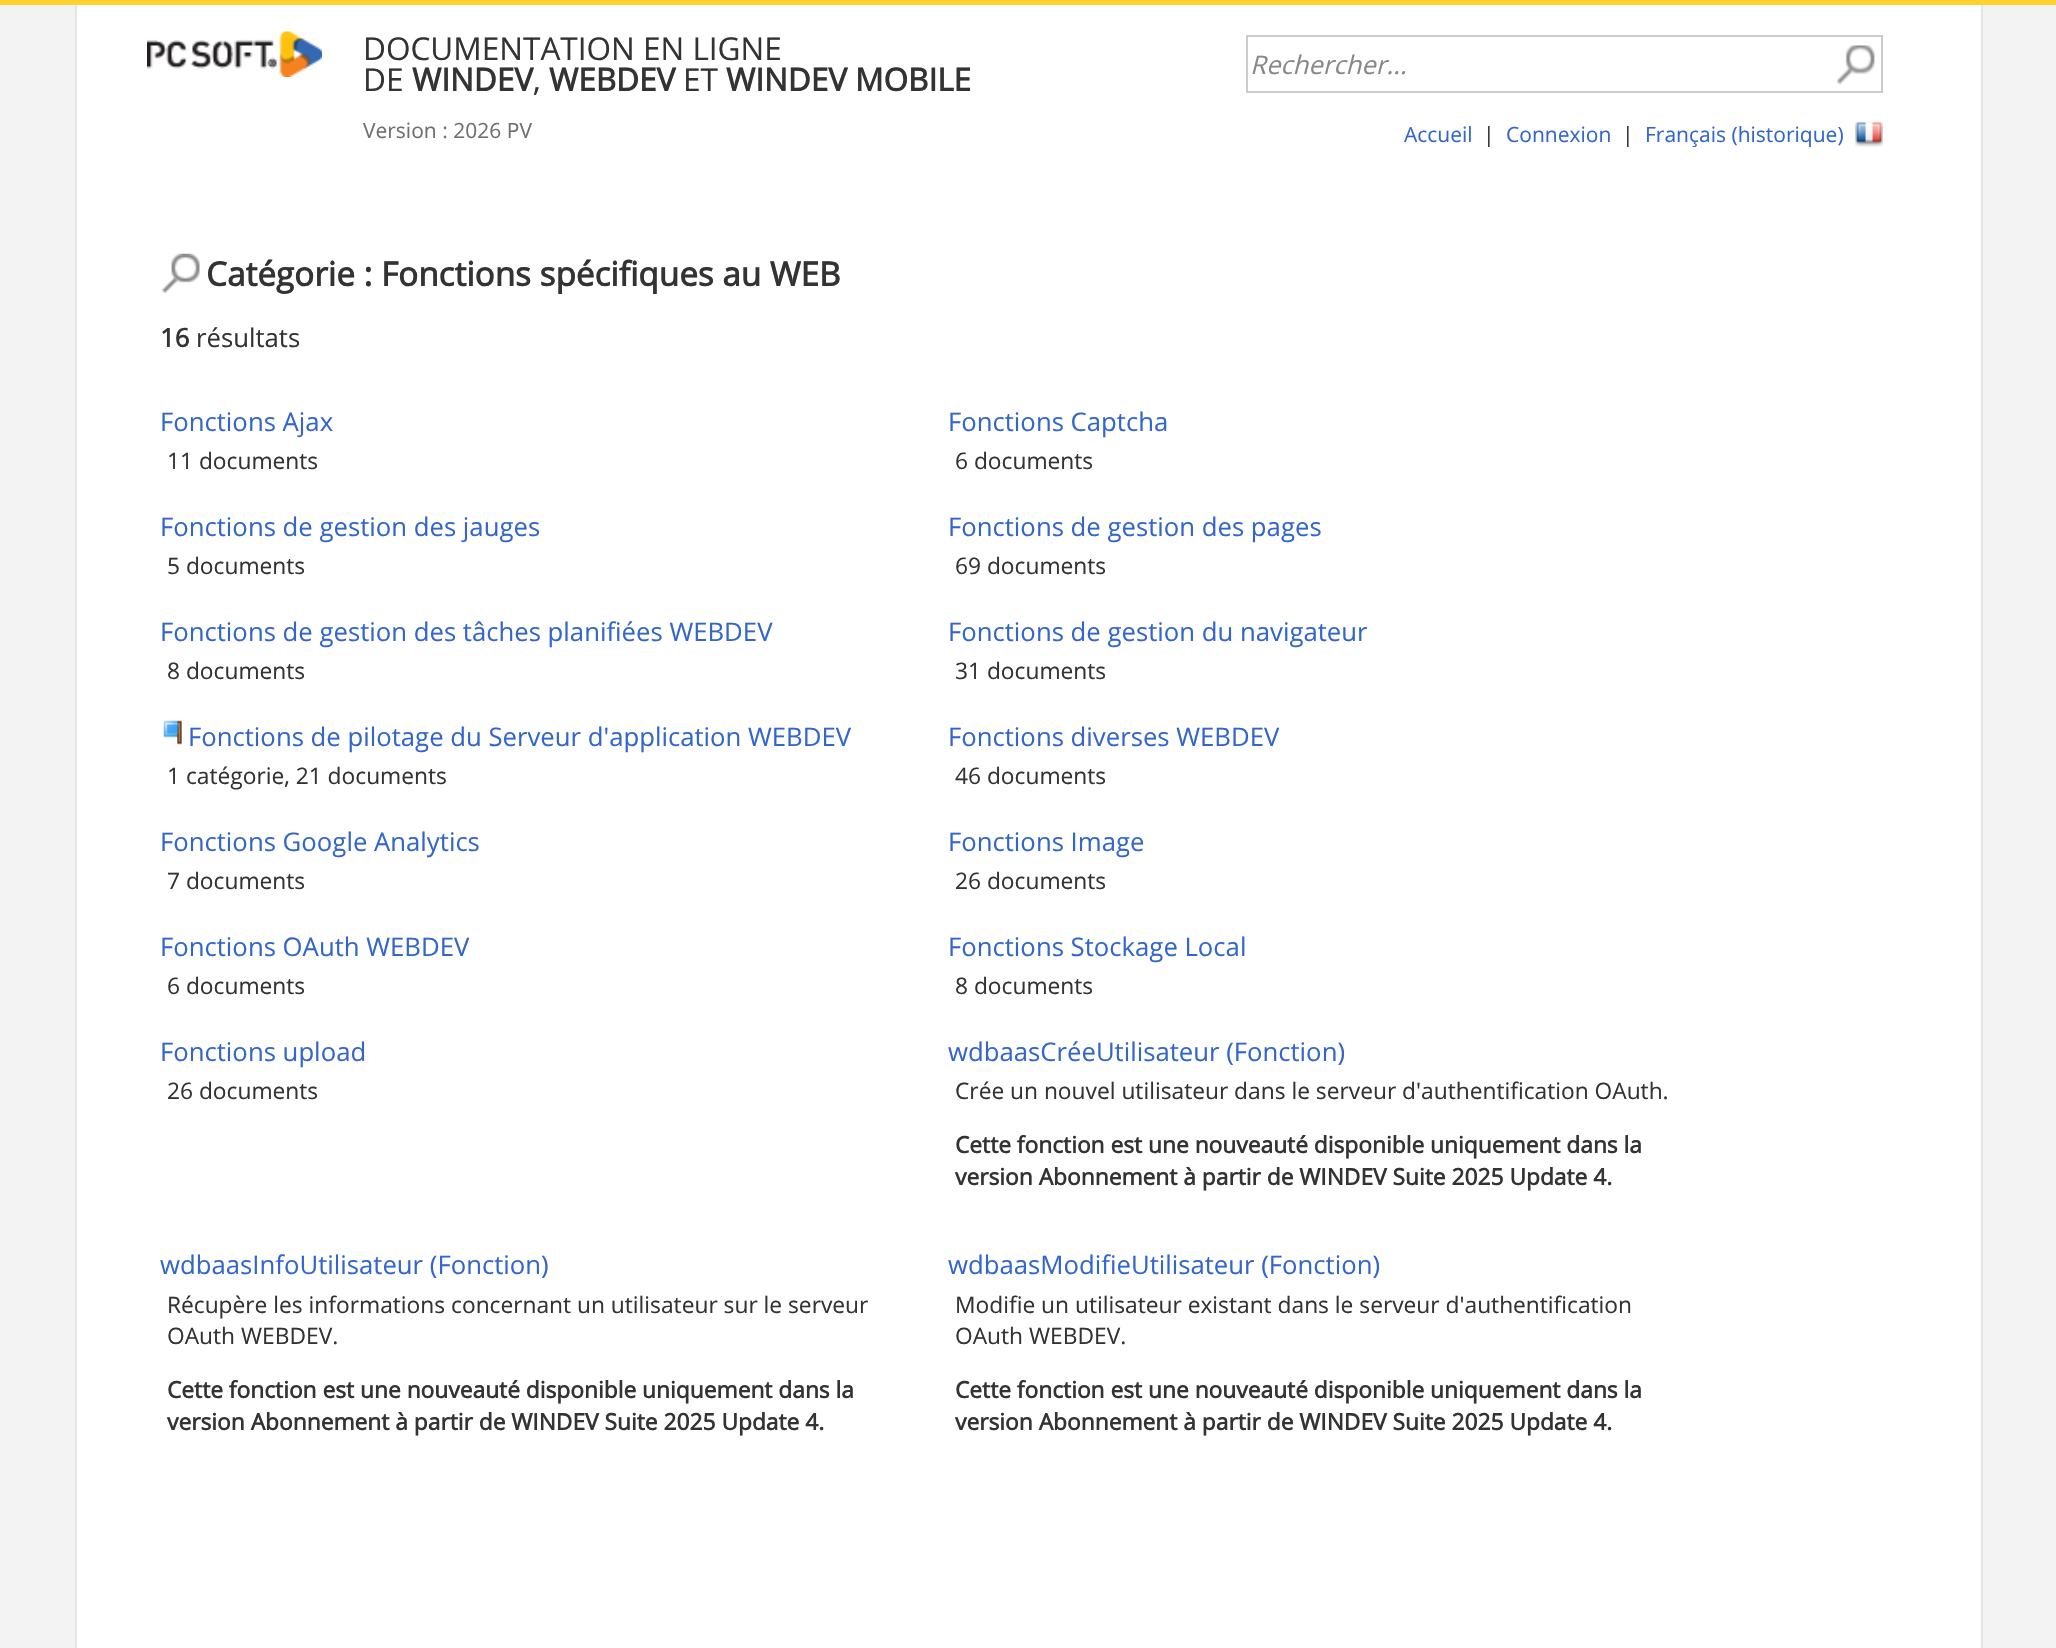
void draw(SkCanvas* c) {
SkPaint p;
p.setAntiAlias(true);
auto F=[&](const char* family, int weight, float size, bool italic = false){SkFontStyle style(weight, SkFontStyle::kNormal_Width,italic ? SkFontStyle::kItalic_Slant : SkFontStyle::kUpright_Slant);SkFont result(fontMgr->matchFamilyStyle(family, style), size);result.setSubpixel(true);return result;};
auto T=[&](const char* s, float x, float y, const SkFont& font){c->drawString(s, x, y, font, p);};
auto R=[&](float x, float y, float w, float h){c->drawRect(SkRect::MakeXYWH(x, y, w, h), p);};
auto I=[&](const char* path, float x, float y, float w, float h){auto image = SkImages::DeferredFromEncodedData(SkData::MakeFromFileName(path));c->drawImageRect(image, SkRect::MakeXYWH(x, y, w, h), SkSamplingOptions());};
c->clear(0xfff3f3f3);
p.setColor(0xfffed22f);
R(0,0,2056,5);
p.setColor(0xffffffff);
R(77,5,1904,1643);
p.setColor(0xffe5e5e5);
R(1981,5,2,1643);
R(75,5,2,1643);
I("1.png",147,31,175,46);
auto f1 = F("Open Sans",400,31.5);
p.setColor(0xff333333);
T("DOCUMENTATION EN LIGNE",363,60,f1);
T("DE",363,91,f1);
auto f2 = F("Open Sans",700,31.5);
T("WINDEV",412,91,f2);
T(",",533,91,f1);
T("WEBDEV",549,91,f2);
T("ET",683,91,f1);
T("WINDEV MOBILE",726,91,f2);
auto f3 = F("Open Sans",400,21);
p.setColor(0xff6f6f6f);
T("Version : 2026 PV",363,138,f3);
p.setStroke(true);
p.setStrokeWidth(2);
p.setColor(0xffcccccc);
c->drawRect(SkRect::MakeXYWH(1247,36,635,56),p);
auto f4 = F("Open Sans",400,25.7,true);
p.setStroke(false);
p.setColor(0xff888888);
T("Rechercher...",1250,74,f4);
p.setColor(0xff3366cc);
T("Accueil",1404,142,f3);
p.setColor(0xff333333);
T("|",1483,142,f3);
p.setColor(0xff3366cc);
T("Connexion",1506,142,f3);
p.setColor(0xff333333);
T("|",1622,142,f3);
p.setColor(0xff3366cc);
T("Français (historique)",1645,142,f3);
I("2.png",1855,121,28,26);
I("3.png",1837,45,38,40);
I("4.png",161,253,39,41);
auto f5 = F("Open Sans",700,33.25);
p.setColor(0xff333333);
T("Catégorie : Fonctions spécifiques au WEB",206,286,f5);
auto f6 = F("Open Sans",700,25.7);
T("16",160,347,f6);
auto f7 = F("Open Sans",400,25.7);
T("résultats",196,347,f7);
p.setColor(0xff3366cc);
T("Fonctions Ajax",160,431,f7);
auto f8 = F("Open Sans",400,22.75);
p.setColor(0xff333333);
T("11 documents",167,469,f8);
p.setColor(0xff3366cc);
T("Fonctions Captcha",948,431,f7);
p.setColor(0xff333333);
T("6 documents",955,469,f8);
p.setColor(0xff3366cc);
T("Fonctions de gestion des jauges",160,536,f7);
p.setColor(0xff333333);
T("5 documents",167,574,f8);
p.setColor(0xff3366cc);
T("Fonctions de gestion des pages",948,536,f7);
p.setColor(0xff333333);
T("69 documents",955,574,f8);
p.setColor(0xff3366cc);
T("Fonctions de gestion des tâches planifiées WEBDEV",160,641,f7);
p.setColor(0xff333333);
T("8 documents",167,679,f8);
p.setColor(0xff3366cc);
T("Fonctions de gestion du navigateur",948,641,f7);
p.setColor(0xff333333);
T("31 documents",955,679,f8);
I("5.png",163,720,19,25);
p.setColor(0xff3366cc);
T("Fonctions de pilotage du Serveur d'application WEBDEV",188,746,f7);
p.setColor(0xff333333);
T("1 catégorie, 21 documents",167,784,f8);
p.setColor(0xff3366cc);
T("Fonctions diverses WEBDEV",948,746,f7);
p.setColor(0xff333333);
T("46 documents",955,784,f8);
p.setColor(0xff3366cc);
T("Fonctions Google Analytics",160,851,f7);
p.setColor(0xff333333);
T("7 documents",167,889,f8);
p.setColor(0xff3366cc);
T("Fonctions Image",948,851,f7);
p.setColor(0xff333333);
T("26 documents",955,889,f8);
p.setColor(0xff3366cc);
T("Fonctions OAuth WEBDEV",160,956,f7);
p.setColor(0xff333333);
T("6 documents",167,994,f8);
p.setColor(0xff3366cc);
T("Fonctions Stockage Local",948,956,f7);
p.setColor(0xff333333);
T("8 documents",955,994,f8);
p.setColor(0xff3366cc);
T("Fonctions upload",160,1061,f7);
p.setColor(0xff333333);
T("26 documents",167,1099,f8);
p.setColor(0xff3366cc);
T("wdbaasCréeUtilisateur (Fonction)",948,1061,f7);
p.setColor(0xff333333);
T("Crée un nouvel utilisateur dans le serveur d'authentification OAuth.",955,1099,f8);
auto f9 = F("Open Sans",700,22.75);
T("Cette fonction est une nouveauté disponible uniquement dans la",955,1153,f9);
T("version Abonnement à partir de WINDEV Suite 2025 Update 4.",955,1185,f9);
p.setColor(0xff3366cc);
T("wdbaasInfoUtilisateur (Fonction)",160,1274,f7);
p.setColor(0xff333333);
T("Récupère les informations concernant un utilisateur sur le serveur",167,1313,f8);
T("OAuth WEBDEV.",167,1344,f8);
T("Cette fonction est une nouveauté disponible uniquement dans la",167,1398,f9);
T("version Abonnement à partir de WINDEV Suite 2025 Update 4.",167,1430,f9);
p.setColor(0xff3366cc);
T("wdbaasModifieUtilisateur (Fonction)",948,1274,f7);
p.setColor(0xff333333);
T("Modifie un utilisateur existant dans le serveur d'authentification",955,1313,f8);
T("OAuth WEBDEV.",955,1344,f8);
T("Cette fonction est une nouveauté disponible uniquement dans la",955,1398,f9);
T("version Abonnement à partir de WINDEV Suite 2025 Update 4.",955,1430,f9);
}
